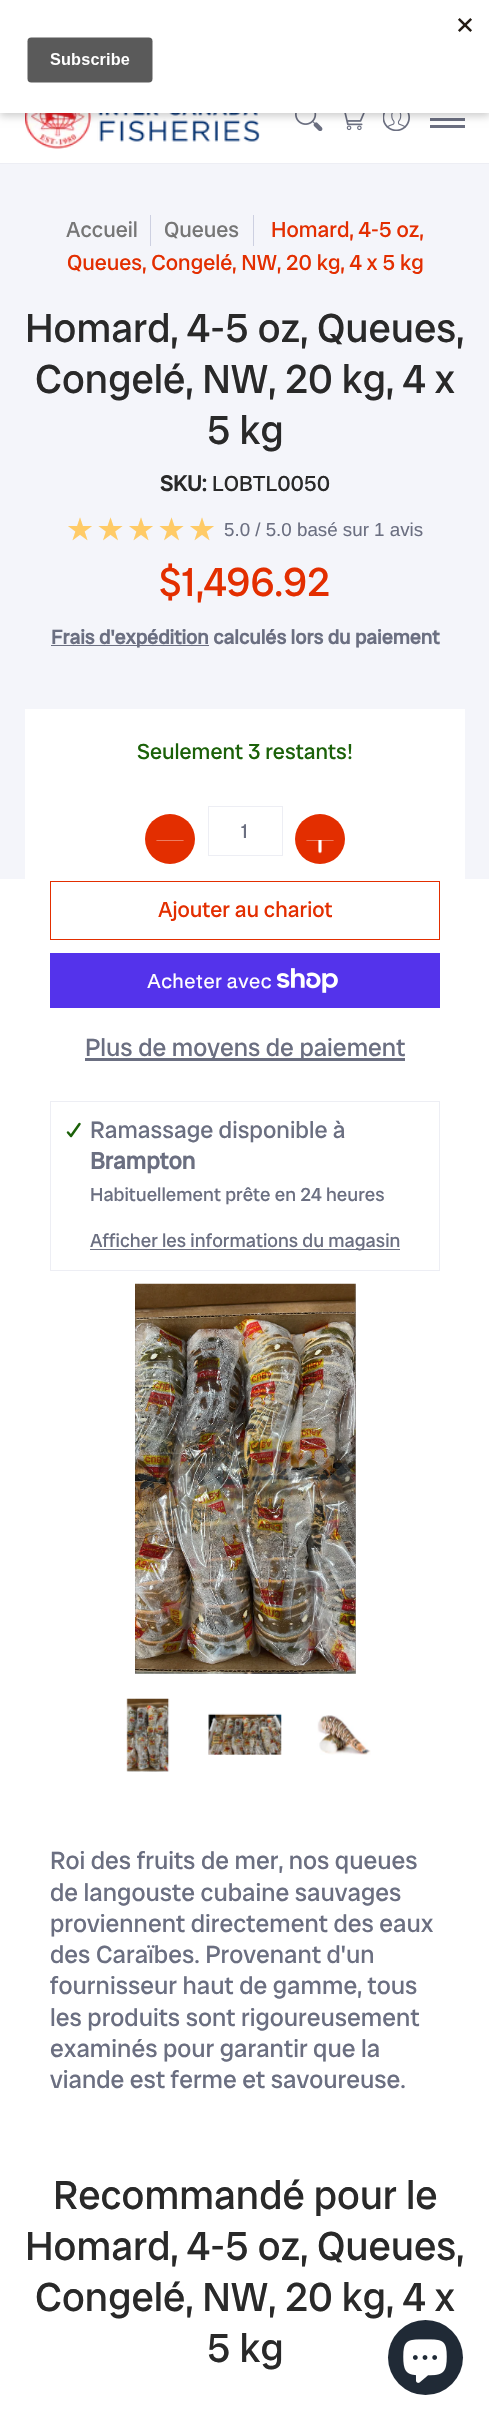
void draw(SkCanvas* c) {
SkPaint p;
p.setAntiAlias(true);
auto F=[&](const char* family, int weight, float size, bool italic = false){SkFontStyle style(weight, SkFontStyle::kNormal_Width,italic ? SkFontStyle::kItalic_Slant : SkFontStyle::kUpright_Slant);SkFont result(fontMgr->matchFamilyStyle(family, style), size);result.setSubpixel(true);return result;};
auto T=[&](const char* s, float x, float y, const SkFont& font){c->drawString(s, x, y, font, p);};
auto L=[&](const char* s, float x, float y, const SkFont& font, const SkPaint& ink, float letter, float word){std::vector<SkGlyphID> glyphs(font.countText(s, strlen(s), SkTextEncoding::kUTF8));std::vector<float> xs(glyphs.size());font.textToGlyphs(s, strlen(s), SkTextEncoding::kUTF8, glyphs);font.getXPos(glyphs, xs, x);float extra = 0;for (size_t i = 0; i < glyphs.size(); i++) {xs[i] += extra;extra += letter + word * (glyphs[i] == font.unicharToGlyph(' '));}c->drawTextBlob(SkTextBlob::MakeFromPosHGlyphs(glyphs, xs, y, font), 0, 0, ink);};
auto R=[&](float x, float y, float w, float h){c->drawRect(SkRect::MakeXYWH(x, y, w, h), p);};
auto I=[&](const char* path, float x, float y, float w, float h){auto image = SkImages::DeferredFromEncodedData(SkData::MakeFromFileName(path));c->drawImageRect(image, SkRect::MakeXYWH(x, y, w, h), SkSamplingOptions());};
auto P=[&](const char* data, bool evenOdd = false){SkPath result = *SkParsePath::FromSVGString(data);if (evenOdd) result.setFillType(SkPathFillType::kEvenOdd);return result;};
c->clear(0xffffffff);
I("2.png",25,113,235,36);
I("3.png",295,113,28,18);
I("4.png",344,113,21,18);
I("5.png",383,113,27,18);
p.setColor(0xff6b6f81);
R(430,118,35,3);
R(430,125,35,3);
p.setColor(0x33000000);
p.setMaskFilter(SkMaskFilter::MakeBlur(kNormal_SkBlurStyle, 4));
c->drawRect(SkRect::MakeXYWH(0,4,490,112),p);
p.setMaskFilter(nullptr);
p.setColor(0xffffffff);
R(0,0,489,113);
I("1.png",27,18,445,65);
p.setColor(0xffedeef4);
R(0,163,489,1);
p.setColor(0xfff4f5fa);
R(0,164,489,715);
auto f1 = F("Radio Canada Big",400,21.9);
p.setColor(0xff767676);
T("Accueil",66,237,f1);
p.setColor(0xffcdd0e1);
R(150,215,1,31);
p.setColor(0xff767676);
T("Queues",164,237,f1);
p.setColor(0xffcdd0e1);
R(253,215,1,31);
p.setColor(0xffe32e00);
T("Homard, 4-5 oz,",271,237,f1);
T("Queues, Congelé, NW, 20 kg, 4 x 5 kg",67,270,f1);
auto f2 = F("Radio Canada Big",400,40.6);
p.setColor(0xff292929);
T("Homard, 4-5 oz, Queues,",25,342,f2);
T("Congelé, NW, 20 kg, 4 x",35,393,f2);
T("5 kg",207,444,f2);
auto f3 = F("Radio Canada Big",700,21.9);
T("SKU:",160,491,f3);
T("LOBTL0050",212,491,f1);
auto f4 = F("DejaVu Sans",400,31.25);
{
const SkColor colors[] = {0xffffcb67,0xffefefef};
const float stops[] = {1,1};
const SkPoint ends[] = {{66,529}, {219,529}};
p.setShader(SkGradientShader::MakeLinear(ends, colors, stops, 2, SkTileMode::kClamp));
p.setAlpha(255);
}
L("★★★★★",66,540,f4,p,2.5,0);
auto f5 = F("Liberation Sans",400,18.75);
p.setShader(nullptr);
p.setColor(0xff6b6f81);
T("5.0 / 5.0 basé sur 1 avis",224,536,f5);
p.setColor(0xffe32e00);
T("$1,496.92",159,596,f2);
p.setColor(0xff6b6f81);
R(51,645,158,1);
auto f6 = F("Radio Canada Big",700,20);
T("Frais d'expédition calculés lors du paiement",51,644,f6);
p.setColor(0xffffffff);
R(25,709,440,170);
p.setColor(0xff1b6109);
T("Seulement 3 restants!",137,759,f1);
p.setColor(0xffe32e00);
c->drawCircle(170,839,25,p);
I("6.png",156,840,28,1);
p.setStroke(true);
p.setStrokeWidth(1);
p.setColor(0xffedeef4);
c->drawRect(SkRect::MakeXYWH(208.5,806.5,74,49),p);
auto f7 = F("Radio Canada Big",400,20);
p.setStroke(false);
p.setColor(0xff6b6f81);
T("1",241,838,f7);
p.setColor(0xffe32e00);
c->drawCircle(320,839,25,p);
I("7.png",306,840,28,14);
p.setStroke(true);
c->drawRect(SkRect::MakeXYWH(50.5,881.5,389,58),p);
p.setStroke(false);
T("Ajouter au chariot",158,917,f1);
p.setColor(0xff5433eb);
R(50,953,390,55);
auto f8 = F("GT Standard",400,20);
p.setColor(0xffffffff);
T("Acheter avec",147,988,f8);
I("8.png",276,968,62,25);
p.setColor(0xff6b6f81);
R(85,1058,320,3);
auto f9 = F("Radio Canada Big",400,25);
T("Plus de moyens de paiement",85,1056,f9);
p.setStroke(true);
p.setColor(0xffedeef4);
c->drawRect(SkRect::MakeXYWH(50.5,1101.5,389,169),p);
p.setStrokeWidth(2.5);
p.setStrokeCap(SkPaint::kRound_Cap);
p.setStrokeJoin(SkPaint::kRound_Join);
p.setColor(0xff1b6109);
c->drawPath(P("M79.5 1124l-8.5 12l-3-3.5"),p);
auto f10 = F("Radio Canada Big",400,23.75);
p.setStroke(false);
p.setColor(0xff6b6f81);
T("Ramassage disponible à",90,1138,f10);
auto f11 = F("Radio Canada Big",700,23.75);
T("Brampton",90,1169,f11);
auto f12 = F("Radio Canada Big",400,19);
T("Habituellement prête en 24 heures",90,1201,f12);
R(90,1249,310,1);
T("Afficher les informations du magasin",90,1247,f12);
I("9.png",135,1283,221,391);
I("10.png",126,1698,44,74);
I("11.png",208,1713,74,42);
I("12.png",317,1715,54,40);
T("Roi des fruits de mer, nos queues",50,1869,f9);
T("de langouste cubaine sauvages",50,1901,f9);
T("proviennent directement des eaux",50,1932,f9);
T("des Caraïbes. Provenant d'un",50,1963,f9);
T("fournisseur haut de gamme, tous",50,1994,f9);
T("les produits sont rigoureusement",50,2026,f9);
T("examinés pour garantir que la",50,2057,f9);
T("viande est ferme et savoureuse.",50,2088,f9);
p.setColor(0xff292929);
T("Recommandé pour le",53,2209,f2);
T("Homard, 4-5 oz, Queues,",25,2260,f2);
T("Congelé, NW, 20 kg, 4 x",35,2311,f2);
T("5 kg",207,2362,f2);
p.setColor(0xff202a36);
c->drawCircle(425.5,2357.5,37.5,p);
I("13.png",403,2339,44,44);
}
